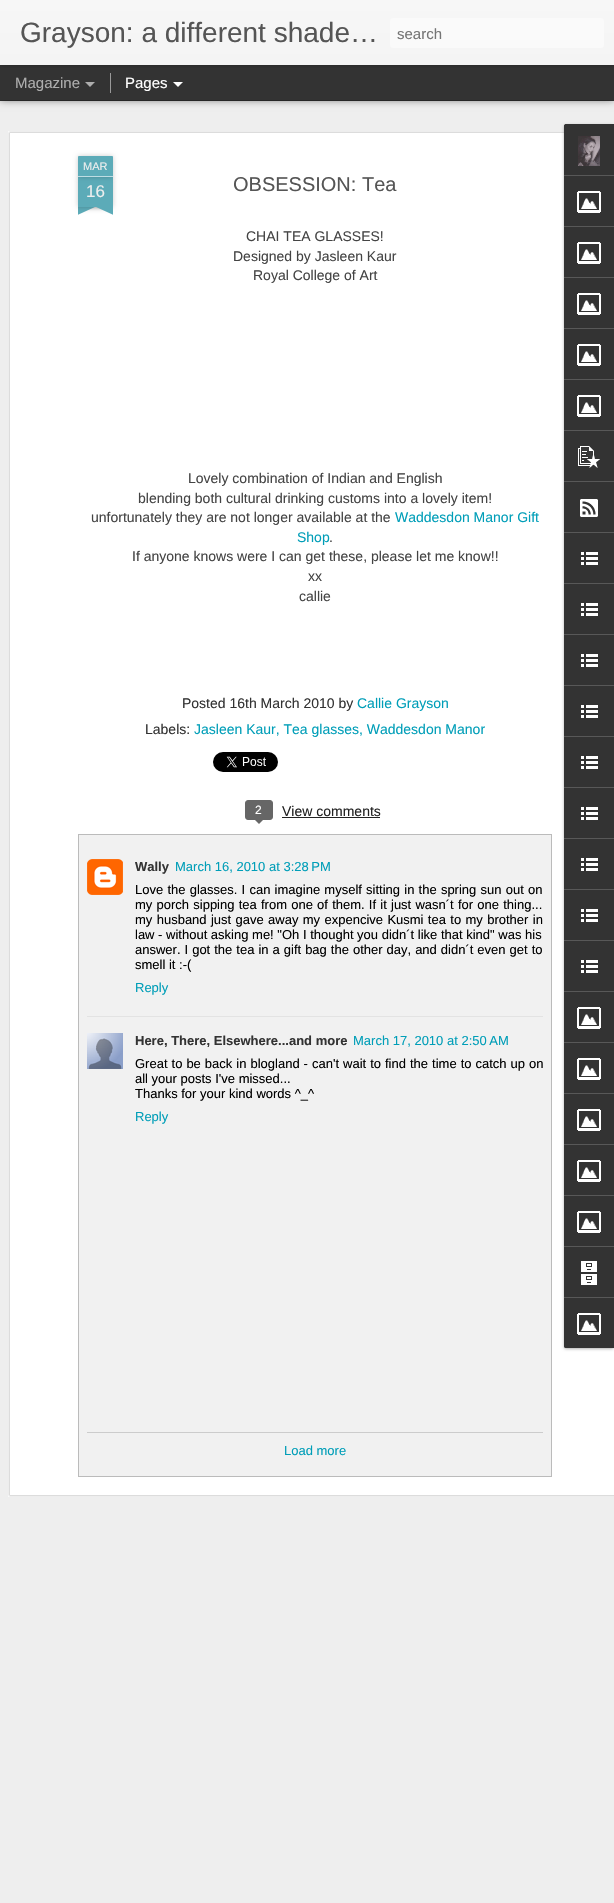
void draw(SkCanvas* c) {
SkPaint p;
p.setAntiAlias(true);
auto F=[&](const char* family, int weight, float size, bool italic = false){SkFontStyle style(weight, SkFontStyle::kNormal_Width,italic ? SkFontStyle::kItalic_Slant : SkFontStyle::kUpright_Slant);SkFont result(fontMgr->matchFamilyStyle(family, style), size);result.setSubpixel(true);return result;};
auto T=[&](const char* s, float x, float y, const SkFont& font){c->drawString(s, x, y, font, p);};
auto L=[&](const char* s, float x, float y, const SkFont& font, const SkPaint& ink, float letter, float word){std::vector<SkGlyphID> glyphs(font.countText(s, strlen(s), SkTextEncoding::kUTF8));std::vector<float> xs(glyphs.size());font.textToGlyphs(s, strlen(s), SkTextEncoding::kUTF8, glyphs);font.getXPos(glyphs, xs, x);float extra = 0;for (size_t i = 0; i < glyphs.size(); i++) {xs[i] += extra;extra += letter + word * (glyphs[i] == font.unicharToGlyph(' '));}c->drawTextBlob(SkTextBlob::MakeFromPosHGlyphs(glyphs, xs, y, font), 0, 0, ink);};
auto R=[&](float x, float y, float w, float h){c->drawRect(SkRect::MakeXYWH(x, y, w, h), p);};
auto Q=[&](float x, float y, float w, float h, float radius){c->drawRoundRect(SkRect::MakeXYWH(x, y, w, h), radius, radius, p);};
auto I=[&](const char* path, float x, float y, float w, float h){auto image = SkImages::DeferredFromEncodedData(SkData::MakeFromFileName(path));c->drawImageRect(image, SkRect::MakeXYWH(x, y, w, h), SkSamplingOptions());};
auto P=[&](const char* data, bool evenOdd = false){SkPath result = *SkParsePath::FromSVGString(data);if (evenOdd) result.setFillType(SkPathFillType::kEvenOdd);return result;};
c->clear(0xff333333);
p.setColor(0xffeeeeee);
R(0,101,614,1802);
p.setColor(0x80000000);
p.setMaskFilter(SkMaskFilter::MakeBlur(kNormal_SkBlurStyle, 4));
c->drawRect(SkRect::MakeXYWH(0,65,614,35),p);
p.setMaskFilter(nullptr);
p.setColor(0xff333333);
R(0,65,614,35);
p.setColor(0xff999999);
R(110,73,1,20);
p.setColor(0x4d000000);
p.setMaskFilter(SkMaskFilter::MakeBlur(kNormal_SkBlurStyle, 2.5));
c->drawRect(SkRect::MakeXYWH(0,0,614,65),p);
p.setMaskFilter(nullptr);
{
const SkColor colors[] = {0xfff7f7f7,0xfff4f4f4};
const float stops[] = {0,1};
const SkPoint ends[] = {{0,0}, {0,65}};
p.setShader(SkGradientShader::MakeLinear(ends, colors, stops, 2, SkTileMode::kClamp));
p.setAlpha(255);
}
R(0,0,614,65);
auto f1 = F("Liberation Sans",400,28);
p.setShader(nullptr);
p.setColor(0xff555555);
T("Grayson: a different shade…",20,42,f1);
p.setColor(0xfffafafa);
Q(390,18,214,30,3);
auto f2 = F("Liberation Sans",400,15);
p.setColor(0xff757575);
T("search",397,39,f2);
p.setColor(0xffadadad);
T("Magazine",15,88,f2);
c->drawPath(P("M85 82h10l-5 5z"),p);
p.setColor(0xffffffff);
T("Pages",125,88,f2);
c->drawPath(P("M173 82h10l-5 5z"),p);
R(8,131,606,1366);
I("1.png",8,131,606,1366);
p.setColor(0x33000000);
p.setMaskFilter(SkMaskFilter::MakeBlur(kNormal_SkBlurStyle, 2.5));
c->drawRect(SkRect::MakeXYWH(78,177,35,30),p);
p.setMaskFilter(nullptr);
p.setColor(0xff5cabb8);
R(78,177,35,30);
p.setColor(0x33000000);
p.setMaskFilter(SkMaskFilter::MakeBlur(kNormal_SkBlurStyle, 2.5));
c->drawRoundRect(SkRect::MakeXYWH(78,156,35,21),1,1,p);
p.setMaskFilter(nullptr);
p.setColor(0xff5cabb8);
c->drawPath(P("M79 156h33c.5 0 1 .5 1 1v20h-35v-20c0-.5 .5-1 1-1z"),p);
p.setColor(0xffbedde3);
R(78,176,35,1);
auto f3 = F("Liberation Sans",400,11);
p.setColor(0xffeeeeee);
T("MAR",83,170,f3);
auto f4 = F("Liberation Sans",400,17);
T("16",86,197,f4);
c->save();
c->clipRect(SkRect::MakeXYWH(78,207,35,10));
p.setColor(0x33000000);
p.setMaskFilter(SkMaskFilter::MakeBlur(kNormal_SkBlurStyle, 2.5));
c->drawRect(SkRect::MakeXYWH(69,197,50,10),p);
p.setMaskFilter(nullptr);
c->restore();
c->save();
c->clipRect(SkRect::MakeXYWH(78,207,35,10));
p.setColor(0xff5cabb8);
c->drawPath(P("M69 208l46-21l4 9l-46 21z"),p);
c->restore();
c->save();
c->clipRect(SkRect::MakeXYWH(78,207,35,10));
p.setColor(0x33000000);
p.setMaskFilter(SkMaskFilter::MakeBlur(kNormal_SkBlurStyle, 2.5));
c->drawRect(SkRect::MakeXYWH(72,197,50,10),p);
p.setMaskFilter(nullptr);
c->restore();
c->save();
c->clipRect(SkRect::MakeXYWH(78,207,35,10));
p.setColor(0xff5cabb8);
c->drawPath(P("M76 187l46 21l-4 9l-46-21z"),p);
c->restore();
auto f5 = F("Liberation Sans",400,20);
p.setColor(0xff555555);
T("OBSESSION: Tea",233,191,f5);
auto f6 = F("Liberation Sans",400,14);
p.setColor(0xff444444);
T("CHAI TEA GLASSES!",246,241,f6);
T("Designed by Jasleen Kaur",233,261,f6);
T("Royal College of Art",253,280,f6);
T("Lovely combination of Indian and English",188,483,f6);
T("blending both cultural drinking customs into a lovely item!",138,503,f6);
T("unfortunately they are not longer available at the",91,522,f6);
p.setColor(0xff009eb8);
T("Waddesdon Manor Gift",395,522,f6);
T("Shop",297,542,f6);
p.setColor(0xff444444);
T(".",329,542,f6);
T("If anyone knows were I can get these, please let me know!!",132,561,f6);
T("xx",308,581,f6);
T("callie",299,601,f6);
p.setColor(0xff333333);
T("Posted 16th March 2010 by",182,708,f6);
p.setColor(0xff009eb8);
T("Callie Grayson",357,708,f6);
p.setColor(0xff333333);
T("Labels:",145,734,f6);
p.setColor(0xff009eb8);
T("Jasleen Kaur, Tea glasses, Waddesdon Manor",194,734,f6);
I("2.png",213,752,65,20);
p.setColor(0xff666666);
c->drawRoundRect(SkRect::MakeXYWH(245.5,800.5,27,19),2.5,2.5,p);
p.setStroke(true);
p.setStrokeWidth(1);
c->drawRoundRect(SkRect::MakeXYWH(245.5,800.5,27,19),2.5,2.5,p);
auto f7 = F("Liberation Sans",400,12);
p.setStroke(false);
p.setColor(0xffffffff);
T("2",255,814,f7);
p.setColor(0xff666666);
c->drawPath(P("M254 819h10l-5 5z"),p);
p.setColor(0xff222222);
T("View comments",282,816,f6);
R(282,817,98,1);
p.setColor(0xfff1f1f1);
c->drawRect(SkRect::MakeXYWH(78.5,834.5,473,642),p);
p.setStroke(true);
p.setColor(0xffbbbbbb);
c->drawRect(SkRect::MakeXYWH(78.5,834.5,473,642),p);
p.setStroke(false);
p.setColor(0xffe3e3e3);
R(87,1016,456,1);
I("3.png",87,859,36,36);
auto f8 = F("Liberation Sans",700,13);
p.setColor(0xff333333);
T("Wally",135,871,f8);
auto f9 = F("Liberation Sans",400,13);
p.setColor(0xff009eb8);
T("March 16, 2010 at 3:28 PM",175,871,f9);
p.setColor(0xff000000);
L("Love the glasses. I can imagine myself sitting in the spring sun out on",135,894,f9,p,0,.6);
L("my porch sipping tea from one of them. If it just wasn´t for one thing...",135,909,f9,p,0,.6);
L("my husband just gave away my expencive Kusmi tea to my brother in",135,924,f9,p,0,.75);
T("law - without asking me! \"Oh I thought you didn´t like that kind\" was his",135,939,f9);
L("answer. I got the tea in a gift bag the other day, and didn´t even get to",135,954,f9,p,0,.4);
T("smell it :-(",135,969,f9);
p.setColor(0xff009eb8);
T("Reply",135,992,f9);
I("4.png",87,1033,36,36);
p.setColor(0xff333333);
T("Here, There, Elsewhere...and more",135,1045,f8);
p.setColor(0xff009eb8);
T("March 17, 2010 at 2:50 AM",353,1045,f9);
p.setColor(0xff000000);
L("Great to be back in blogland - can't wait to find the time to catch up on",135,1068,f9,p,0,.4);
T("all your posts I've missed...",135,1083,f9);
T("Thanks for your kind words ^_^",135,1098,f9);
p.setColor(0xff009eb8);
T("Reply",135,1121,f9);
p.setColor(0xffcccccc);
R(87,1432,456,1);
p.setColor(0xff009eb8);
T("Load more",284,1455,f9);
p.setColor(0x4d000000);
p.setMaskFilter(SkMaskFilter::MakeBlur(kNormal_SkBlurStyle, 1.5));
c->drawRoundRect(SkRect::MakeXYWH(564,125,50,1224),2,2,p);
p.setMaskFilter(nullptr);
p.setColor(0xff333333);
c->drawPath(P("M566 124h48v1224h-48c-1 0-2-1-2-2v-1220c0-1 1-2 2-2z"),p);
c->drawPath(P("M566 124h48v51h-50v-49c0-1 1-2 2-2z"),p);
I("5.png",578,136,22,30);
p.setColor(0xff585858);
R(564,175,50,1);
I("6.png",577,191,24,22);
R(564,226,50,1);
I("6.png",577,242,24,22);
R(564,277,50,1);
I("6.png",577,293,24,22);
R(564,328,50,1);
I("6.png",577,344,24,22);
R(564,379,50,1);
I("6.png",577,395,24,22);
R(564,430,50,1);
I("7.png",578,446,22,22);
R(564,481,50,1);
I("8.png",580,499,18,18);
R(564,532,50,1);
I("9.png",581,552,17,13);
R(564,583,50,1);
I("9.png",581,603,17,13);
R(564,634,50,1);
I("9.png",581,654,17,13);
R(564,685,50,1);
I("9.png",581,705,17,13);
R(564,736,50,1);
I("9.png",581,756,17,13);
R(564,787,50,1);
I("9.png",581,807,17,13);
R(564,838,50,1);
I("9.png",581,858,17,13);
R(564,889,50,1);
I("9.png",581,909,17,13);
R(564,940,50,1);
I("9.png",581,960,17,13);
R(564,991,50,1);
I("6.png",577,1007,24,22);
R(564,1042,50,1);
I("6.png",577,1058,24,22);
R(564,1093,50,1);
I("6.png",577,1109,24,22);
R(564,1144,50,1);
I("6.png",577,1160,24,22);
R(564,1195,50,1);
I("6.png",577,1211,24,22);
R(564,1246,50,1);
I("10.png",581,1261,16,24);
p.setColor(0xff333333);
c->drawPath(P("M564 1297h50v51h-48c-1 0-2-1-2-2z"),p);
p.setColor(0xff585858);
R(564,1297,50,1);
I("6.png",577,1313,24,22);
}
